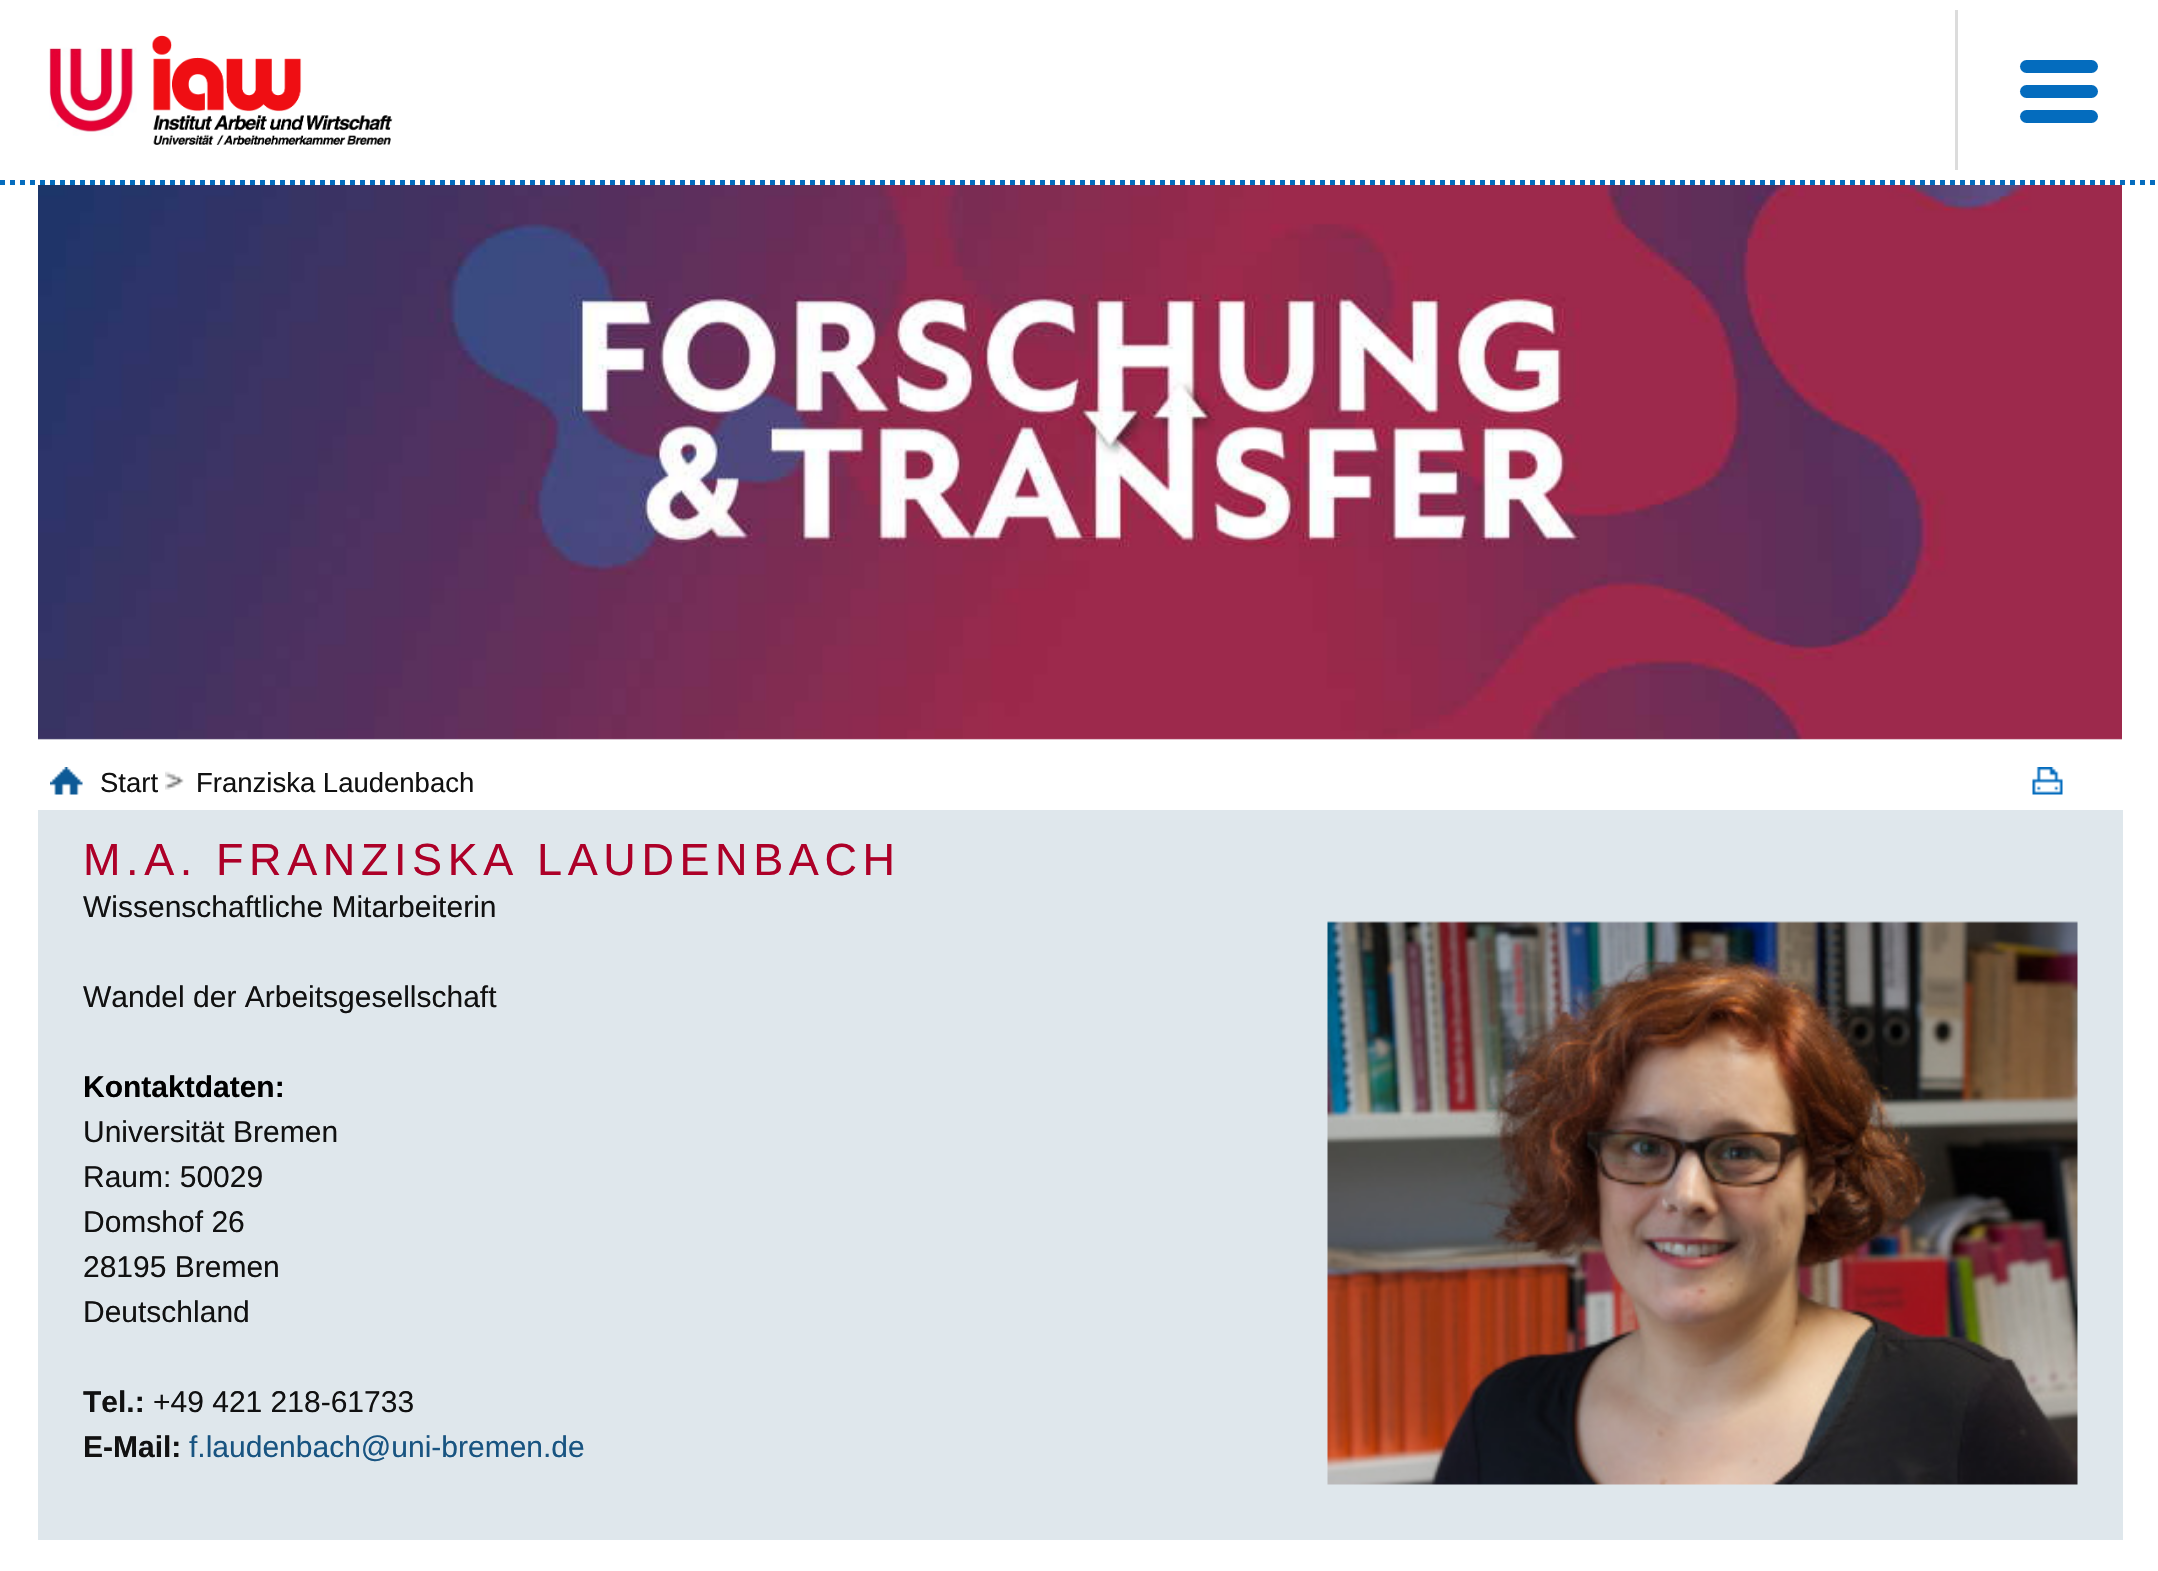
void draw(SkCanvas* c) {
SkPaint p;
p.setAntiAlias(true);
auto F=[&](const char* family, int weight, float size, bool italic = false){SkFontStyle style(weight, SkFontStyle::kNormal_Width,italic ? SkFontStyle::kItalic_Slant : SkFontStyle::kUpright_Slant);SkFont result(fontMgr->matchFamilyStyle(family, style), size);result.setSubpixel(true);return result;};
auto T=[&](const char* s, float x, float y, const SkFont& font){c->drawString(s, x, y, font, p);};
auto L=[&](const char* s, float x, float y, const SkFont& font, const SkPaint& ink, float letter, float word){std::vector<SkGlyphID> glyphs(font.countText(s, strlen(s), SkTextEncoding::kUTF8));std::vector<float> xs(glyphs.size());font.textToGlyphs(s, strlen(s), SkTextEncoding::kUTF8, glyphs);font.getXPos(glyphs, xs, x);float extra = 0;for (size_t i = 0; i < glyphs.size(); i++) {xs[i] += extra;extra += letter + word * (glyphs[i] == font.unicharToGlyph(' '));}c->drawTextBlob(SkTextBlob::MakeFromPosHGlyphs(glyphs, xs, y, font), 0, 0, ink);};
auto R=[&](float x, float y, float w, float h){c->drawRect(SkRect::MakeXYWH(x, y, w, h), p);};
auto Q=[&](float x, float y, float w, float h, float radius){c->drawRoundRect(SkRect::MakeXYWH(x, y, w, h), radius, radius, p);};
auto I=[&](const char* path, float x, float y, float w, float h){auto image = SkImages::DeferredFromEncodedData(SkData::MakeFromFileName(path));c->drawImageRect(image, SkRect::MakeXYWH(x, y, w, h), SkSamplingOptions());};
auto P=[&](const char* data, bool evenOdd = false){SkPath result = *SkParsePath::FromSVGString(data);if (evenOdd) result.setFillType(SkPathFillType::kEvenOdd);return result;};
c->clear(0xffffffff);
p.setStroke(true);
p.setStrokeWidth(5);
p.setColor(0xff046cbe);
p.setPathEffect(SkDashPathEffect::Make({{5,5}}, 0));
c->drawPath(P("M0 182.5h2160"),p);
p.setPathEffect(nullptr);
I("1.png",49,47,88,89);
I("2.png",152,35,241,110);
p.setStroke(false);
p.setColor(0xffdcdcdc);
R(1955,10,3,160);
p.setColor(0xff046cbe);
Q(2020,85,78,13,6.5);
Q(2020,60,78,13,6.5);
Q(2020,110,78,13,6.5);
I("3.png",38,185,2084,555);
p.setColor(0x66ffffff);
R(38,739,2084,1);
I("4.png",50,767,33,28);
auto f1 = F("Liberation Sans",400,27.5);
p.setColor(0xff111111);
T("Start",100,792,f1);
I("5.png",165,771,19,19);
T("Franziska Laudenbach",196,792,f1);
I("6.png",2032,767,31,28);
p.setColor(0xffdfe7ec);
R(38,810,2085,730);
auto f2 = F("Liberation Sans",400,45);
p.setColor(0xffad0028);
L("M.A. FRANZISKA LAUDENBACH",83,875,f2,p,5.6,0);
auto f3 = F("Liberation Sans",400,30);
p.setColor(0xff111111);
T("Wissenschaftliche Mitarbeiterin",83,917,f3);
T("Wandel der Arbeitsgesellschaft",83,1007,f3);
I("7.png",1327,921,751,564);
auto f4 = F("Liberation Sans",700,30);
p.setColor(0xff000000);
T("Kontaktdaten:",83,1097,f4);
p.setColor(0xff111111);
T("Universität Bremen",83,1142,f3);
T("Raum: 50029",83,1187,f3);
T("Domshof 26",83,1232,f3);
T("28195 Bremen",83,1277,f3);
T("Deutschland",83,1322,f3);
T("Tel.:",83,1412,f4);
T("+49 421 218-61733",153,1412,f3);
T("E-Mail:",83,1457,f4);
p.setColor(0xff185481);
T("f.laudenbach@uni-bremen.de",189,1457,f3);
}
